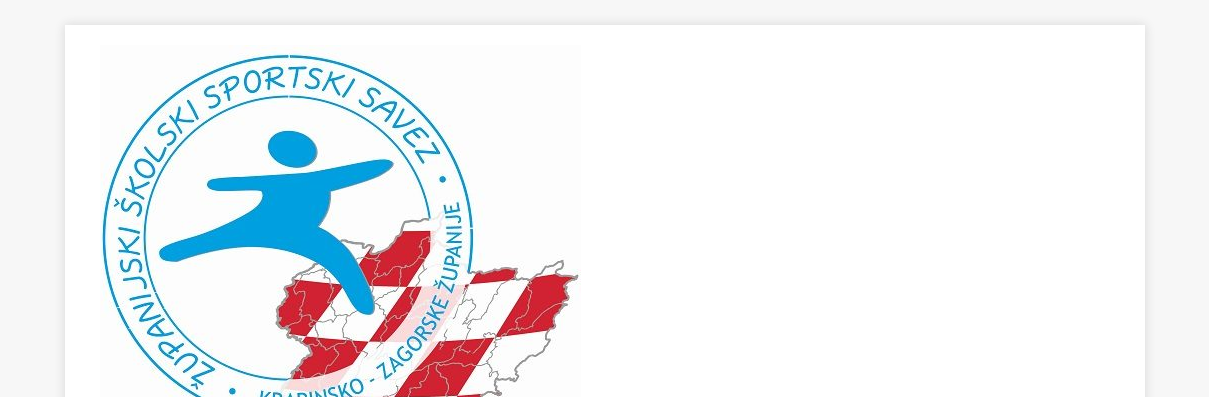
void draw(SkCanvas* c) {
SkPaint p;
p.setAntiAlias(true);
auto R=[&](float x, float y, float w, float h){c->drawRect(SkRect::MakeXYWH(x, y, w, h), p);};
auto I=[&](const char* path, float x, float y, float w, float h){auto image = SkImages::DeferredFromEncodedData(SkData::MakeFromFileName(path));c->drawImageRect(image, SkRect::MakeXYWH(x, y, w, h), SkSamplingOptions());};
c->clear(0xfff7f7f7);
p.setColor(0x2b323232);
p.setMaskFilter(SkMaskFilter::MakeBlur(kNormal_SkBlurStyle, 5));
c->drawRect(SkRect::MakeXYWH(65,25,1080,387),p);
p.setMaskFilter(nullptr);
p.setColor(0xffffffff);
R(65,25,1080,372);
I("1.png",100,45,481,352);
}
